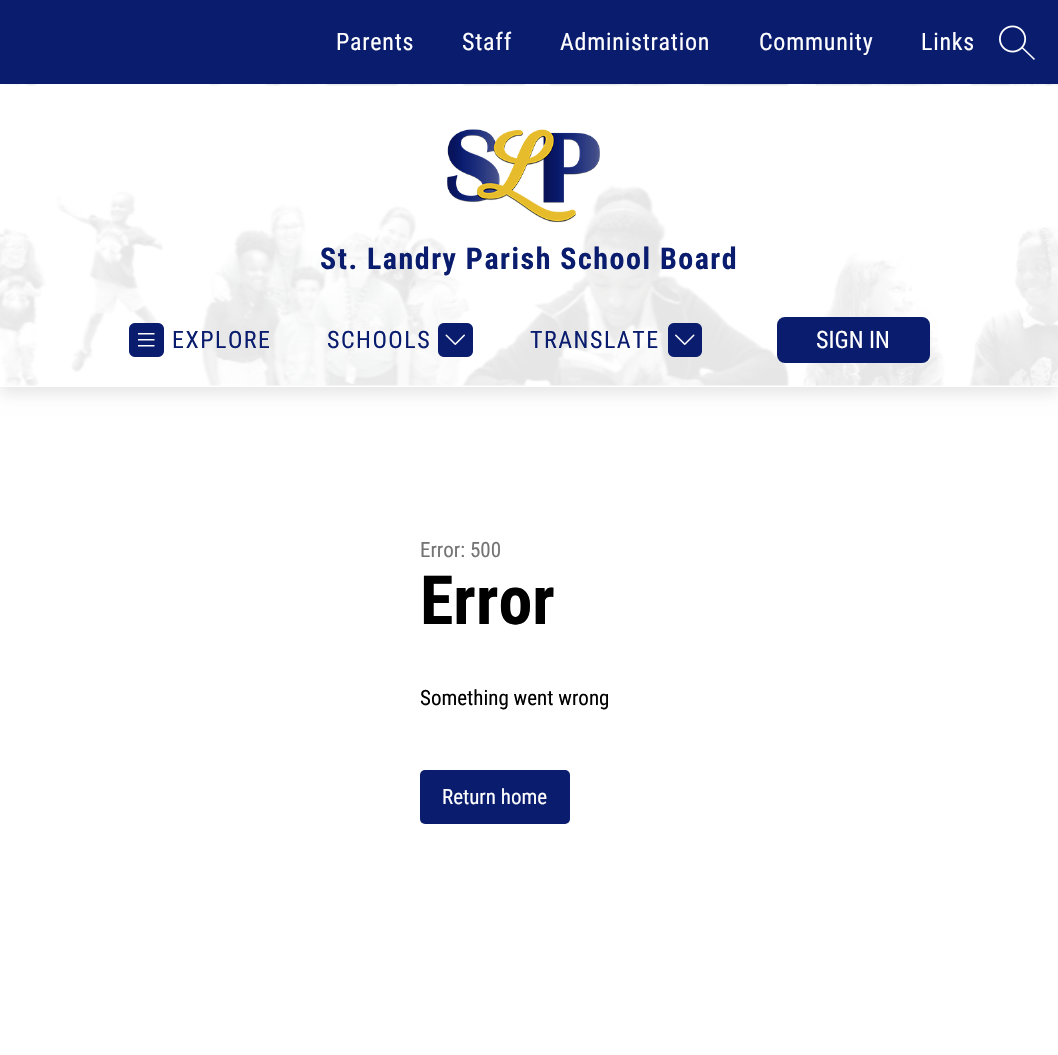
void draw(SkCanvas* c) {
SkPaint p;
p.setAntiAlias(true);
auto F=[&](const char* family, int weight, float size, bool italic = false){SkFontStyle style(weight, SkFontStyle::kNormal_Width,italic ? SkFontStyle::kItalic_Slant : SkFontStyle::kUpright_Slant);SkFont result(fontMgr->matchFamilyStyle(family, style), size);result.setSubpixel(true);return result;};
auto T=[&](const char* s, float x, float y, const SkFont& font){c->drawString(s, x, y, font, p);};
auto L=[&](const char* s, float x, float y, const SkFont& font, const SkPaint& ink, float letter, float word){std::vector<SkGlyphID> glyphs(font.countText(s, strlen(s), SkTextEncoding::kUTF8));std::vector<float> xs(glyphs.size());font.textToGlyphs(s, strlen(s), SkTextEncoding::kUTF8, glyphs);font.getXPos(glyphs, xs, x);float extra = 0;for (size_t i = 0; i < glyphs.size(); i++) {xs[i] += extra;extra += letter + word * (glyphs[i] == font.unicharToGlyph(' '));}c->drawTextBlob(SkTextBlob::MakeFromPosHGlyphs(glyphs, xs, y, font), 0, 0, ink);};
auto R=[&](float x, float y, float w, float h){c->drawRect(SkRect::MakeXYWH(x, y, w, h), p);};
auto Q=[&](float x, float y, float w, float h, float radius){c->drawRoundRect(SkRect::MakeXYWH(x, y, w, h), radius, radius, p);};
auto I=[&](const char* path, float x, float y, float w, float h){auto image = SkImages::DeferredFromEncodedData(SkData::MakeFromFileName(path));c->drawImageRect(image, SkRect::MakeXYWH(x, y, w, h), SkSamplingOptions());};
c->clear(0xffffffff);
p.setColor(0x1a000000);
p.setMaskFilter(SkMaskFilter::MakeBlur(kNormal_SkBlurStyle, 7.5));
c->drawRect(SkRect::MakeXYWH(0,6,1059,387),p);
p.setMaskFilter(nullptr);
p.setColor(0xff0a1c6e);
R(0,0,1058,84);
auto f1 = F("Roboto Condensed",400,24);
p.setColor(0xffffffff);
L("Parents",336,50,f1,p,.75,0);
L("Staff",462,50,f1,p,.75,0);
L("Administration",560,50,f1,p,.75,0);
L("Community",759,50,f1,p,.75,0);
L("Links",921,50,f1,p,.75,0);
I("1.png",999,25,36,35);
R(0,386,1058,1);
I("2.png",0,84,1058,302);
I("3.png",447,129,153,94);
auto f2 = F("Roboto Condensed",700,30);
p.setColor(0xff0a1c6e);
L("St. Landry Parish School Board",320,269,f2,p,1.5,0);
I("4.png",129,323,35,34);
L("EXPLORE",172,348,f1,p,1.5,0);
L("SCHOOLS",327,348,f1,p,1.5,0);
I("5.png",438,323,35,34);
L("TRANSLATE",530,348,f1,p,1.5,0);
I("6.png",668,323,34,34);
c->drawRoundRect(SkRect::MakeXYWH(778,318,151,44),7,7,p);
p.setStroke(true);
p.setStrokeWidth(2);
c->drawRoundRect(SkRect::MakeXYWH(778,318,151,44),7,7,p);
p.setStroke(false);
p.setColor(0xffffffff);
T("SIGN IN",816,348,f1);
auto f3 = F("Roboto Condensed",400,21);
p.setColor(0xff747474);
T("Error: 500",420,557,f3);
auto f4 = F("Roboto Condensed",700,68);
p.setColor(0xff000000);
T("Error",420,624,f4);
T("Something went wrong",420,705,f3);
p.setColor(0xff0a1c6e);
Q(420,770,150,54,5);
p.setColor(0xffffffff);
T("Return home",442,804,f3);
}
